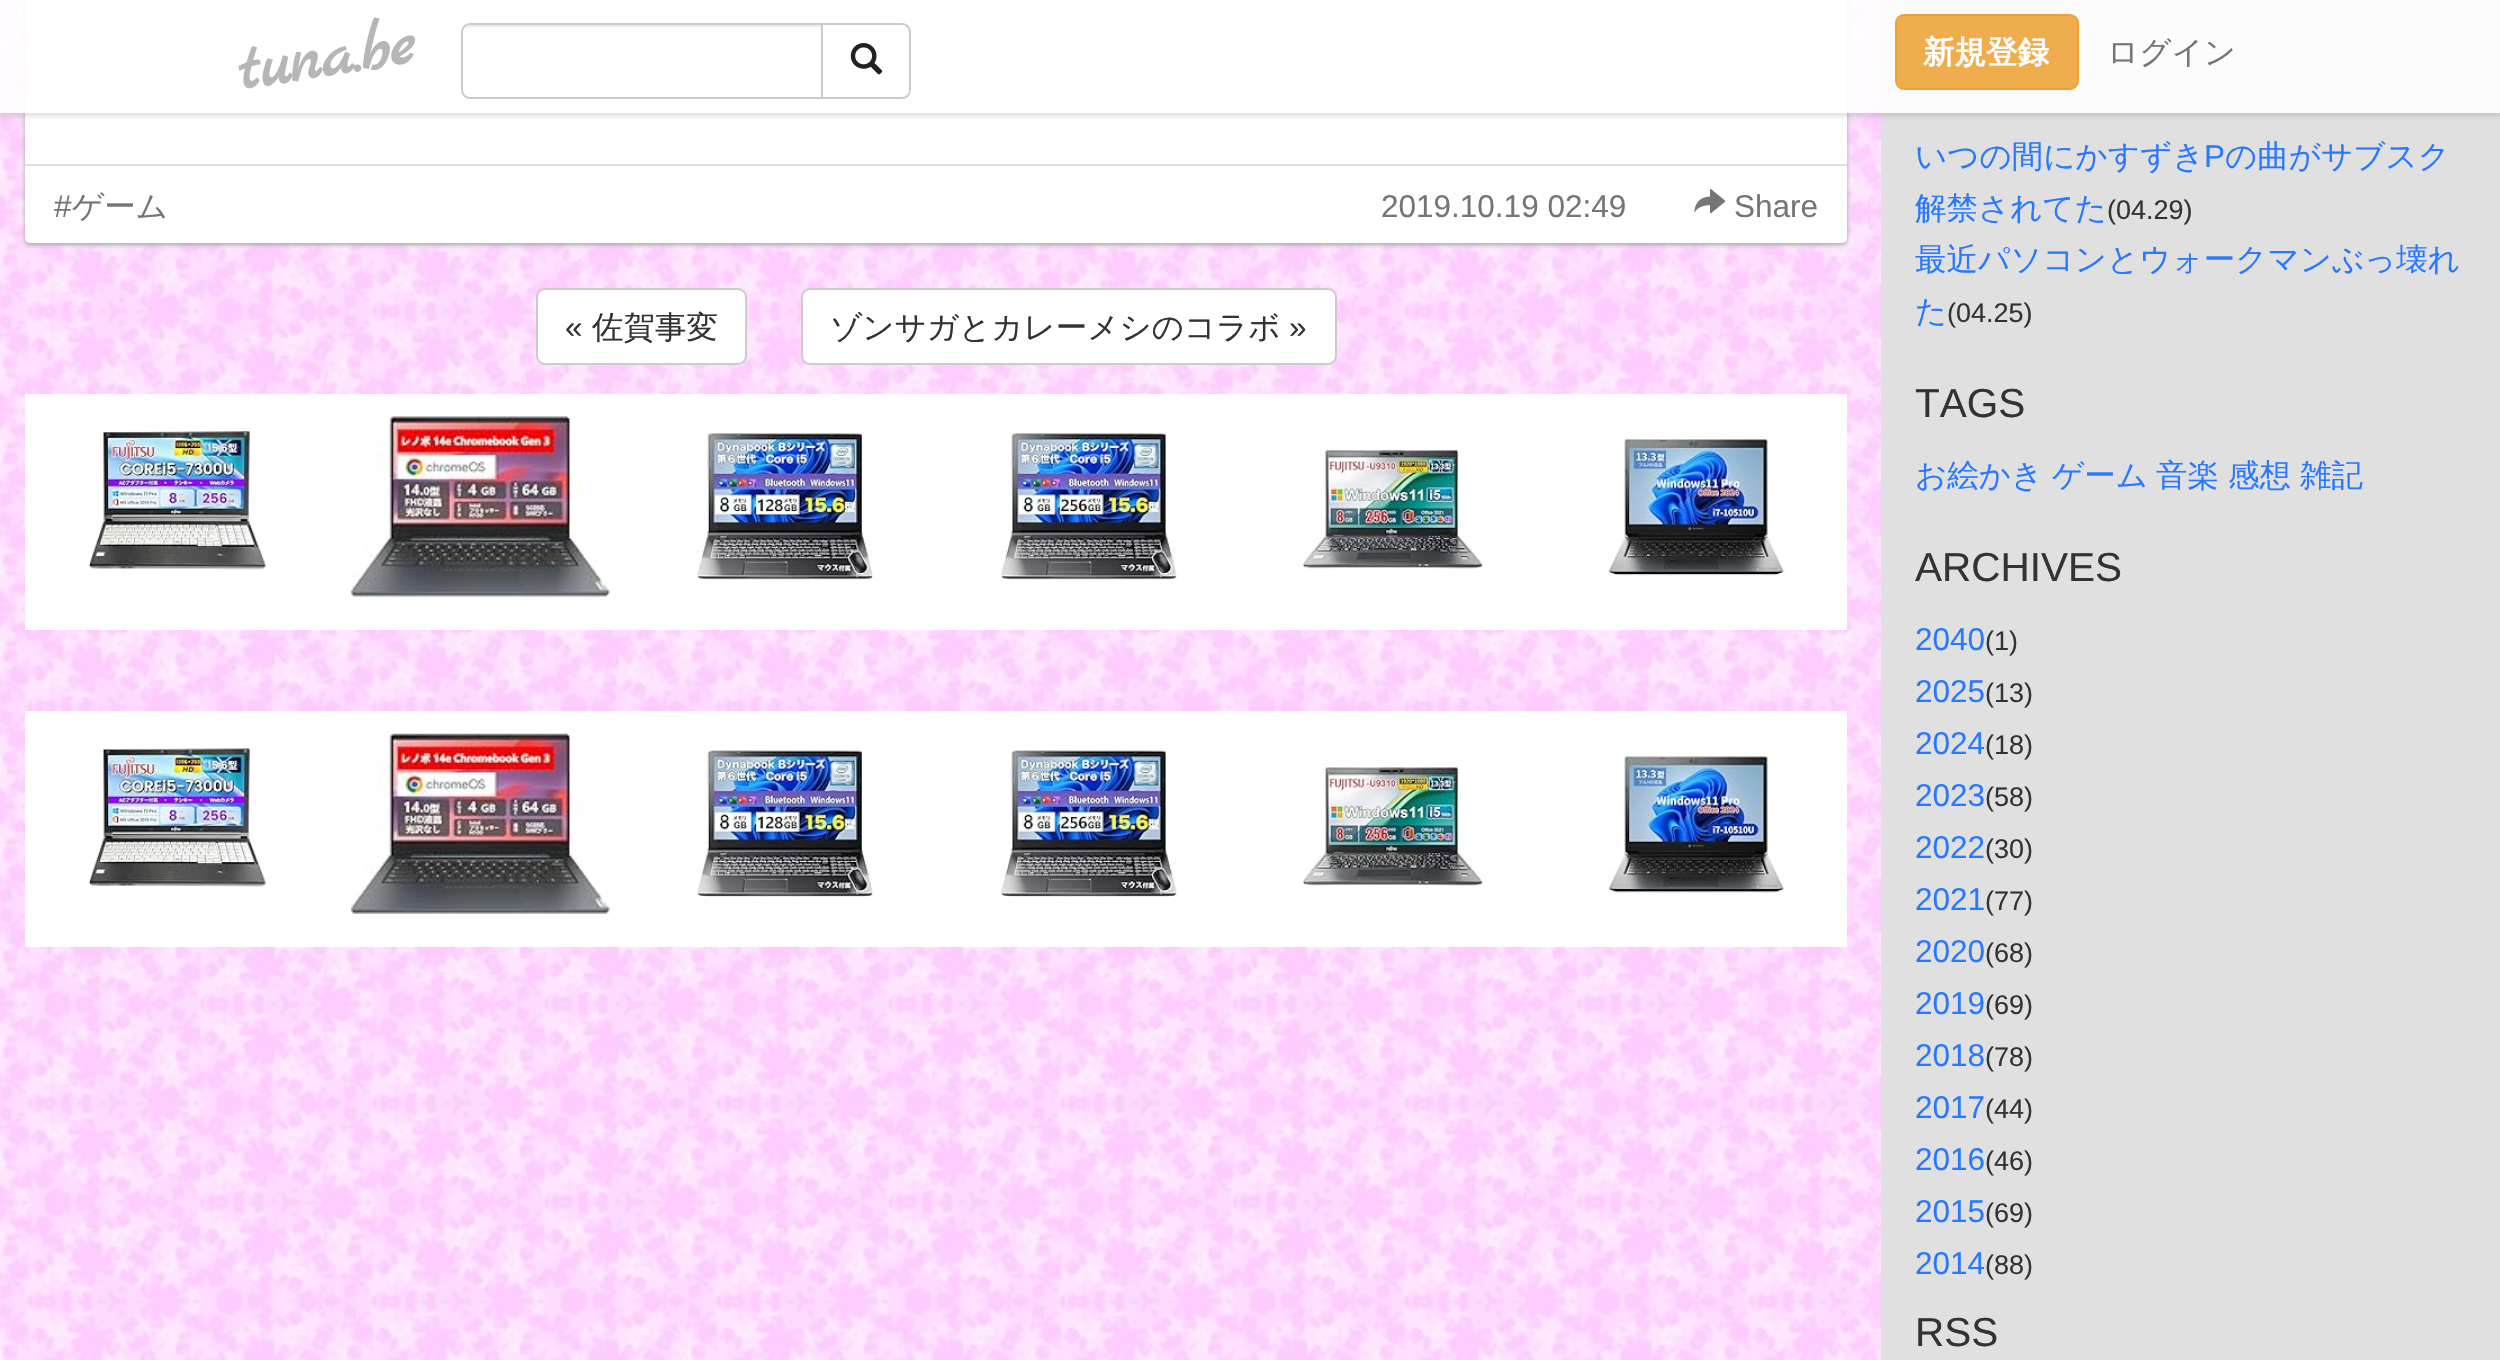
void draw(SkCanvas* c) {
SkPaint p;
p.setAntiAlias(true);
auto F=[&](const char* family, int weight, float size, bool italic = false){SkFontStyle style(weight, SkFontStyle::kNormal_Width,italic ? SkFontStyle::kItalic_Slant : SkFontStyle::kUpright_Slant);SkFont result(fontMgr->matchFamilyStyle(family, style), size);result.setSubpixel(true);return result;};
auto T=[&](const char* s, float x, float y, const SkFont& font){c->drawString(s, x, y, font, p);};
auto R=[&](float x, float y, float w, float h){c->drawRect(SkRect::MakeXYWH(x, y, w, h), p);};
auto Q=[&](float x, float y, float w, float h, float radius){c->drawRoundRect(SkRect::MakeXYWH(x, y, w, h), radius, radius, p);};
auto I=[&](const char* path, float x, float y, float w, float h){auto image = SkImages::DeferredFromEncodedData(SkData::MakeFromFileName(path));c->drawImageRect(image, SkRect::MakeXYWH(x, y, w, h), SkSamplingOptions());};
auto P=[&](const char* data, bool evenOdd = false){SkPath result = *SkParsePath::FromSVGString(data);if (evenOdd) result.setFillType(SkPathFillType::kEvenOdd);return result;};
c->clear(0xffffffff);
I("1.png",0,0,1881,1360);
p.setColor(0xffaaaaaa);
p.setMaskFilter(SkMaskFilter::MakeBlur(kNormal_SkBlurStyle, 2));
c->drawRoundRect(SkRect::MakeXYWH(25,-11,1822,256),5,5,p);
p.setMaskFilter(nullptr);
p.setColor(0xffffffff);
Q(25,-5,1822,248,5);
p.setColor(0xffe0e0e0);
R(1881,0,619,1360);
c->save();
c->clipPath(P("M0 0h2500v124h-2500zm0 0h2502v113h-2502z",true),true);
p.setColor(0x1a000000);
p.setMaskFilter(SkMaskFilter::MakeBlur(kNormal_SkBlurStyle, 2));
c->drawRect(SkRect::MakeXYWH(0,5,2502,112),p);
p.setMaskFilter(nullptr);
c->restore();
p.setColor(0xe6ffffff);
R(0,0,2500,113);
auto f1 = F("Marck Script",700,67.5);
p.setColor(0xffb6b6b6);
c->save();
c->rotate(-9,241,90);
T("tuna.be",241,90,f1);
c->restore();
p.setColor(0xffececec);
c->drawPath(P("M470 27h351v-2h-350c-5 0-7 5-7 9c0-4 3-7 6-7z"),p);
p.setStroke(true);
p.setStrokeWidth(2);
p.setColor(0xffcccccc);
c->drawPath(P("M470 24h353v74h-353c-4.5 0-8-3.5-8-8v-58c0-4.5 3.5-8 8-8z"),p);
p.setStroke(false);
p.setColor(0xffffffff);
c->drawPath(P("M822 24h80c4.5 0 8 3.5 8 8v58c0 4.5-3.5 8-8 8h-80z"),p);
p.setStroke(true);
p.setColor(0xffcccccc);
c->drawPath(P("M822 24h80c4.5 0 8 3.5 8 8v58c0 4.5-3.5 8-8 8h-80z"),p);
I("2.png",850,43,33,32);
p.setStroke(false);
p.setColor(0xfff0ad4e);
c->drawRoundRect(SkRect::MakeXYWH(1896,15,182,74),8,8,p);
p.setStroke(true);
p.setColor(0xffeea236);
c->drawRoundRect(SkRect::MakeXYWH(1896,15,182,74),8,8,p);
auto f2 = F("WenQuanYi Zen Hei",700,31.5);
p.setStroke(false);
p.setColor(0xffffffff);
T("新規登録",1923,63,f2);
auto f3 = F("WenQuanYi Zen Hei",500,31.5);
p.setColor(0xff757575);
T("ログイン",2107,63,f3);
p.setColor(0xffe0e0e0);
R(25,164,1822,2);
auto f4 = F("Liberation Sans",400,31.5);
p.setColor(0xff757575);
T("#",54,217,f4);
T("ゲーム",72,217,f3);
T("2019.10.19 02:49",1381,217,f4);
I("3.png",1694,189,32,25);
T("Share",1734,217,f4);
p.setColor(0xffffffff);
c->drawRoundRect(SkRect::MakeXYWH(537,289,209,75),8,8,p);
p.setStroke(true);
p.setColor(0xffcccccc);
c->drawRoundRect(SkRect::MakeXYWH(537,289,209,75),8,8,p);
p.setStroke(false);
p.setColor(0xff333333);
T("«",565,338,f4);
T("佐賀事変",592,338,f3);
p.setColor(0xffffffff);
c->drawRoundRect(SkRect::MakeXYWH(802,289,534,75),8,8,p);
p.setStroke(true);
p.setColor(0xffcccccc);
c->drawRoundRect(SkRect::MakeXYWH(802,289,534,75),8,8,p);
p.setStroke(false);
p.setColor(0xff333333);
T("ゾンサガとカレーメシのコラボ",830,338,f3);
T("»",1289,338,f4);
p.setColor(0xffffffff);
R(25,394,1822,236);
I("4.png",88,428,179,142);
I("5.png",351,416,259,181);
I("6.png",696,428,178,152);
I("7.png",1000,428,178,152);
I("8.png",1302,449,181,120);
I("9.png",1608,435,177,141);
R(25,711,1822,236);
I("10.png",88,745,178,142);
I("11.png",351,733,259,181);
I("12.png",697,745,177,152);
I("13.png",1000,745,178,152);
I("14.png",1302,766,181,120);
I("15.png",1608,752,177,142);
p.setColor(0xff2979ff);
T("いつの間にかすずき",1915,167,f3);
T("P",2204,167,f4);
T("の曲がサブスク",2225,167,f3);
T("解禁されてた",1915,219,f3);
auto f5 = F("Liberation Sans",400,27);
p.setColor(0xff333333);
T("(04.29)",2107,219,f5);
p.setColor(0xff2979ff);
T("最近パソコンとウォークマンぶっ壊れ",1915,270,f3);
T("た",1915,322,f3);
p.setColor(0xff333333);
T("(04.25)",1947,322,f5);
auto f6 = F("Liberation Sans",400,40.5);
T("TAGS",1915,417,f6);
p.setColor(0xff2979ff);
T("お絵かき",1915,486,f3);
T("ゲーム",2052,486,f3);
T("音楽",2156,486,f3);
T("感想",2228,486,f3);
T("雑記",2300,486,f3);
p.setColor(0xff333333);
T("ARCHIVES",1915,581,f6);
p.setColor(0xff2979ff);
T("2040",1915,650,f4);
p.setColor(0xff333333);
T("(1)",1985,650,f5);
p.setColor(0xff2979ff);
T("2025",1915,702,f4);
p.setColor(0xff333333);
T("(13)",1985,702,f5);
p.setColor(0xff2979ff);
T("2024",1915,754,f4);
p.setColor(0xff333333);
T("(18)",1985,754,f5);
p.setColor(0xff2979ff);
T("2023",1915,806,f4);
p.setColor(0xff333333);
T("(58)",1985,806,f5);
p.setColor(0xff2979ff);
T("2022",1915,858,f4);
p.setColor(0xff333333);
T("(30)",1985,858,f5);
p.setColor(0xff2979ff);
T("2021",1915,910,f4);
p.setColor(0xff333333);
T("(77)",1985,910,f5);
p.setColor(0xff2979ff);
T("2020",1915,962,f4);
p.setColor(0xff333333);
T("(68)",1985,962,f5);
p.setColor(0xff2979ff);
T("2019",1915,1014,f4);
p.setColor(0xff333333);
T("(69)",1985,1014,f5);
p.setColor(0xff2979ff);
T("2018",1915,1066,f4);
p.setColor(0xff333333);
T("(78)",1985,1066,f5);
p.setColor(0xff2979ff);
T("2017",1915,1118,f4);
p.setColor(0xff333333);
T("(44)",1985,1118,f5);
p.setColor(0xff2979ff);
T("2016",1915,1170,f4);
p.setColor(0xff333333);
T("(46)",1985,1170,f5);
p.setColor(0xff2979ff);
T("2015",1915,1222,f4);
p.setColor(0xff333333);
T("(69)",1985,1222,f5);
p.setColor(0xff2979ff);
T("2014",1915,1274,f4);
p.setColor(0xff333333);
T("(88)",1985,1274,f5);
T("RSS",1915,1346,f6);
}
